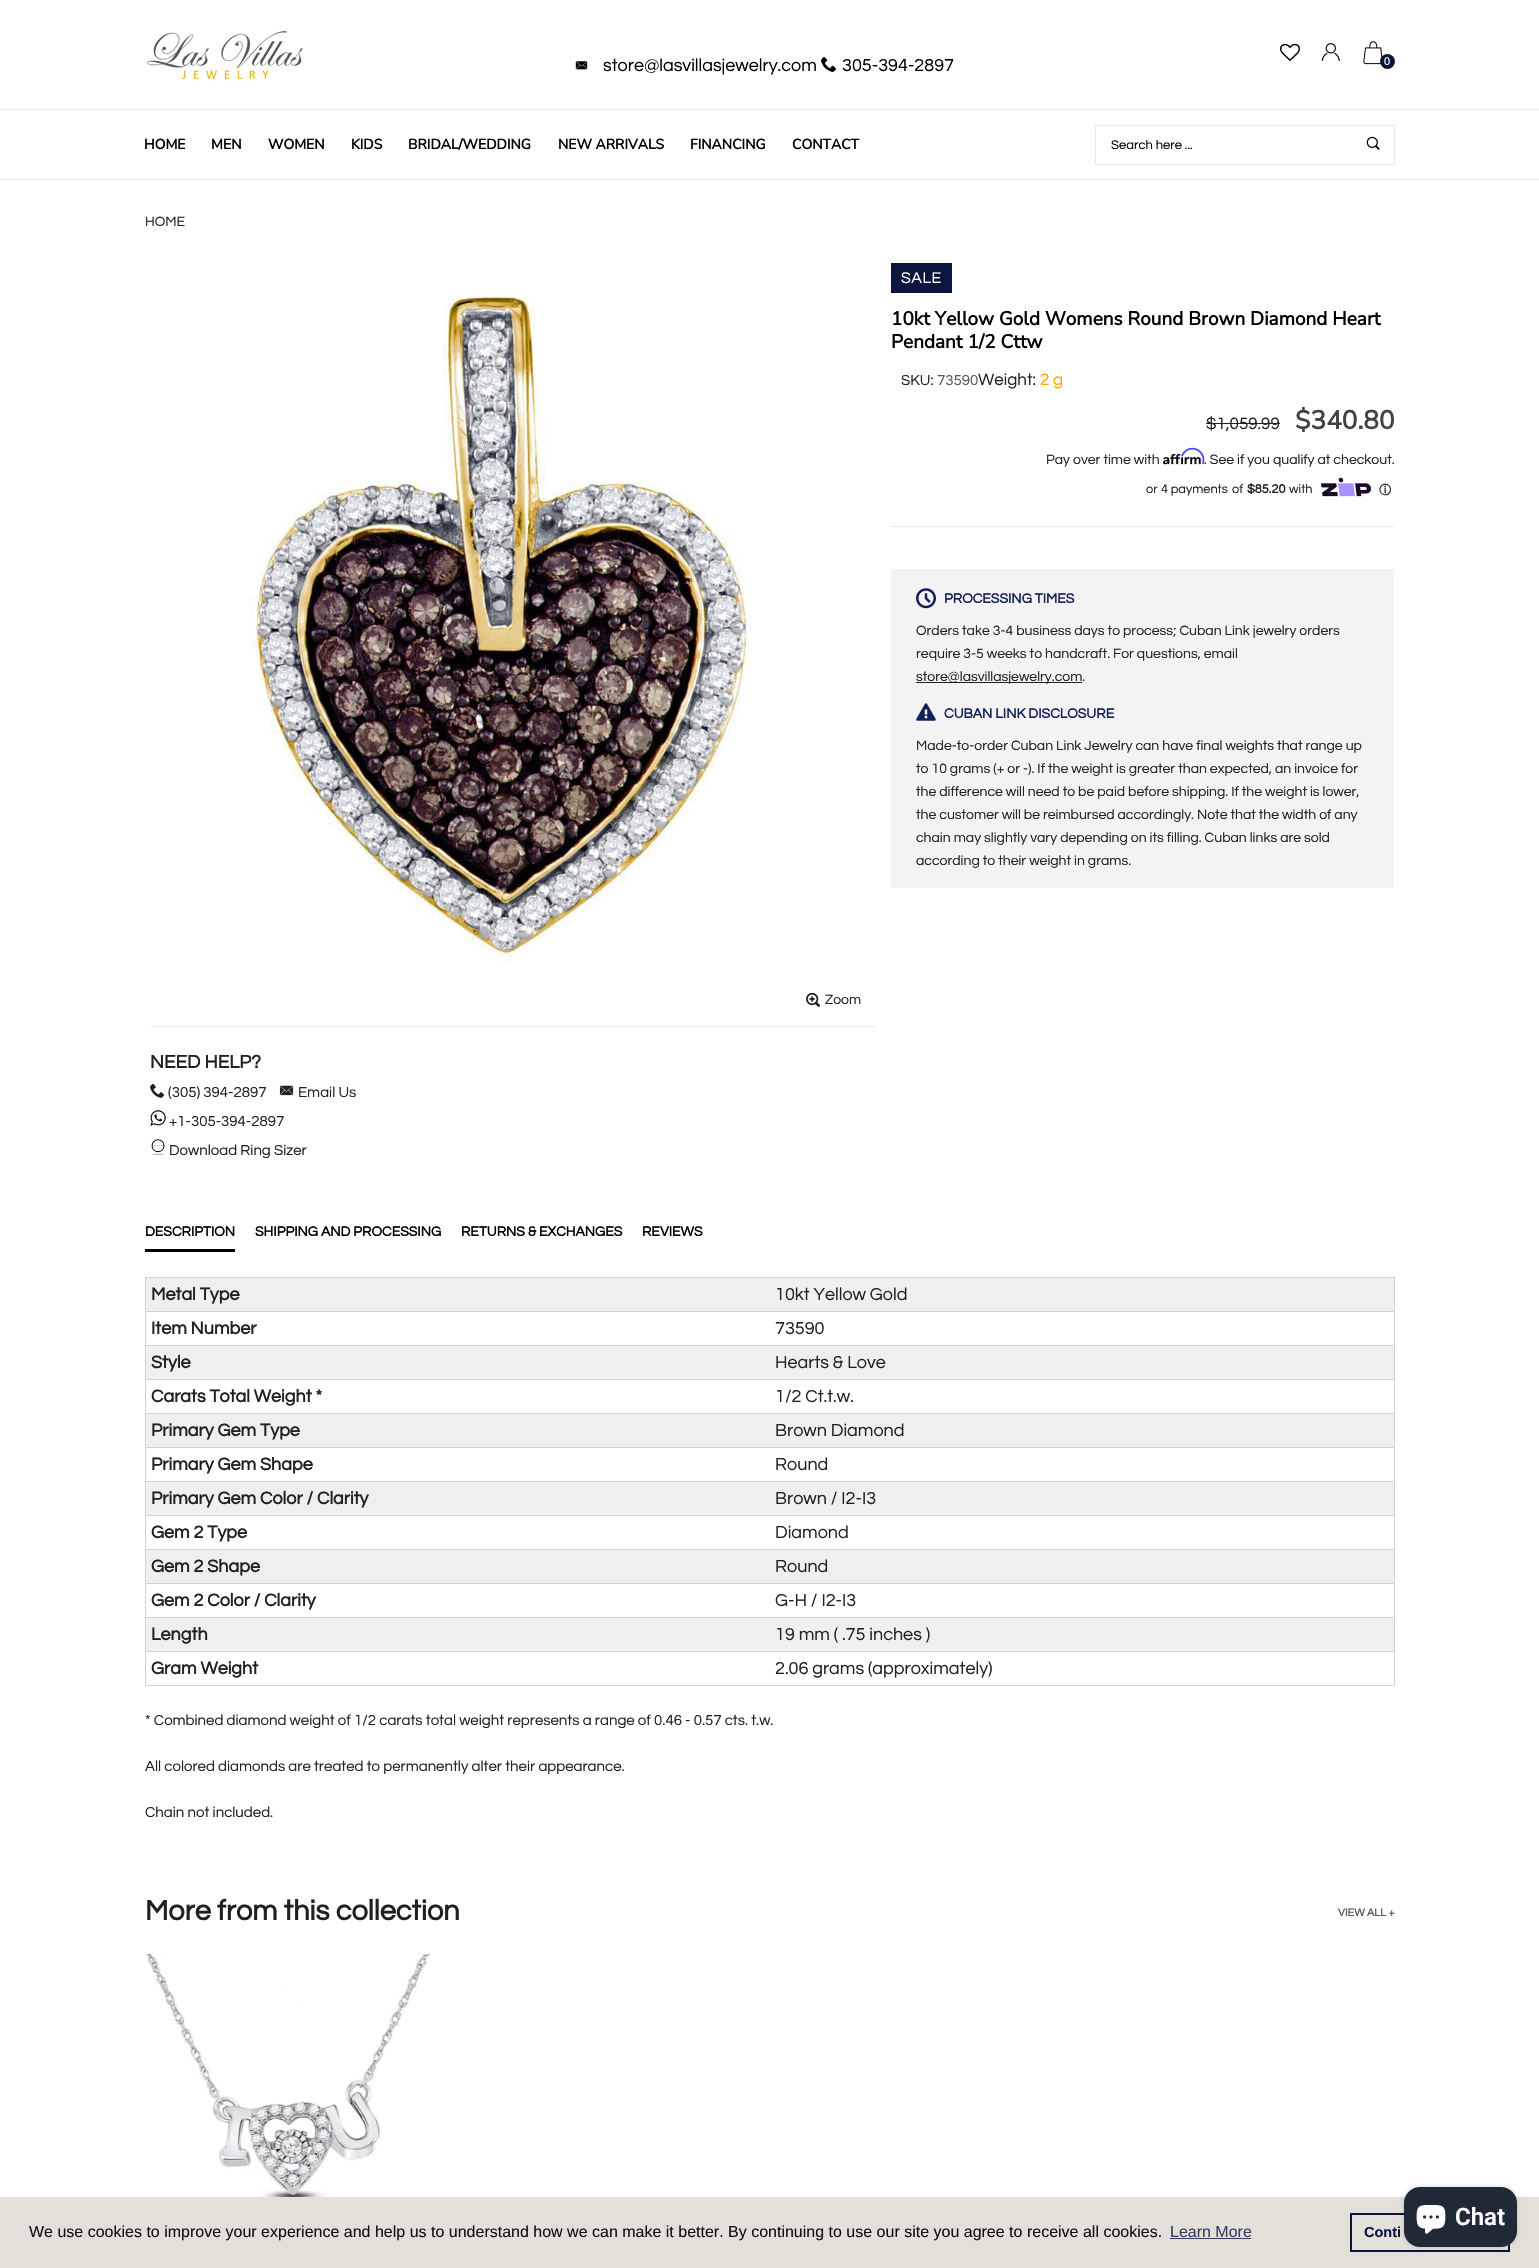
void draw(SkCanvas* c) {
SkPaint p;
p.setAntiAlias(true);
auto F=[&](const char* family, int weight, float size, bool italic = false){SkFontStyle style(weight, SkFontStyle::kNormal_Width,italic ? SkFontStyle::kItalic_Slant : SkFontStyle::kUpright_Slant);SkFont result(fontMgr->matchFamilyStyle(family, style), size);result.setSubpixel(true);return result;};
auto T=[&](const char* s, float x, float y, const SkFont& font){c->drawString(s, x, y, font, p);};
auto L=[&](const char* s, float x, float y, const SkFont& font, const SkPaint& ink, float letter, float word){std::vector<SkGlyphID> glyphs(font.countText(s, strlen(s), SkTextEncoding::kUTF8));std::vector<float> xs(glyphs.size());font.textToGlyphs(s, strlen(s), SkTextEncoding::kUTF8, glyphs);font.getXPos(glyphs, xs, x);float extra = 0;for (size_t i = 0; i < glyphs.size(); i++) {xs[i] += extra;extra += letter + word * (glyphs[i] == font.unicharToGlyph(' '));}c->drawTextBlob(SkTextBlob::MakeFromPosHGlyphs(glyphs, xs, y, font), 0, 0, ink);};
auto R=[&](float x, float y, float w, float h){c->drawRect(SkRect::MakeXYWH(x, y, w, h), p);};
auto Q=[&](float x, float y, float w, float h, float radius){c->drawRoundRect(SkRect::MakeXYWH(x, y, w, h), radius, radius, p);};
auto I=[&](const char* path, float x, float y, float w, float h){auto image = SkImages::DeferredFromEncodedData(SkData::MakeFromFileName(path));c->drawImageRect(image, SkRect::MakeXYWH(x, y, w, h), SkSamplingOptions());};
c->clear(0xffffffff);
I("1.png",147,31,156,49);
I("2.png",575,61,13,9);
auto f1 = F("Questrial",400,18);
p.setColor(0xff000000);
T("store@lasvillasjewelry.com",603,71,f1);
I("3.png",821,57,15,15);
T("305-394-2897",842,71,f1);
I("4.png",1280,43,20,18);
I("5.png",1321,43,19,18);
I("6.png",1363,41,20,24);
p.setColor(0xff0e1637);
c->drawCircle(1387.5,61.5,7.5,p);
auto f2 = F("Liberation Sans",400,11);
p.setColor(0xffffffff);
T("0",1384,65,f2);
p.setColor(0xffe8e8e8);
R(0,109,1539,1);
auto f3 = F("Nunito Sans",700,14);
p.setColor(0xff000000);
T("HOME",144,149,f3);
T("MEN",211,149,f3);
T("WOMEN",268,149,f3);
T("KIDS",351,149,f3);
T("BRIDAL/WEDDING",408,149,f3);
T("NEW ARRIVALS",558,149,f3);
T("FINANCING",690,149,f3);
T("CONTACT",792,149,f3);
p.setStroke(true);
p.setStrokeWidth(1);
p.setColor(0xffe8e8e8);
c->drawRect(SkRect::MakeXYWH(1095.5,125.5,299,39),p);
auto f4 = F("Questrial",400,13);
p.setStroke(false);
p.setColor(0xff000000);
T("Search here ...",1111,149,f4);
I("7.png",1366,136,14,14);
p.setColor(0xffe8e8e8);
R(0,179,1539,1);
auto f5 = F("Questrial",400,14);
p.setColor(0xff202123);
T("HOME",145,226,f5);
p.setColor(0xff0b153f);
R(891,263,61,30);
auto f6 = F("Questrial",400,16);
p.setColor(0xffffffff);
L("SALE",901,283,f6,p,.5,0);
auto f7 = F("Nunito Sans",700,19);
p.setColor(0xff000000);
T("10kt Yellow Gold Womens Round Brown Diamond Heart",891,325,f7);
T("Pendant 1/2 Cttw",891,348,f7);
auto f8 = F("Questrial",400,15);
p.setColor(0xff202123);
T("SKU:",901,385,f8);
p.setColor(0xff575757);
T("73590",937,385,f8);
auto f9 = F("Questrial",400,17);
p.setColor(0xff202123);
T("Weight:",978,385,f9);
p.setColor(0xffffa500);
T("2 g",1040,385,f9);
p.setColor(0xff202123);
T("$1,059.99",1206,429,f9);
R(1206,423,74,1);
auto f10 = F("Nunito Sans",700,26);
p.setColor(0xff424242);
T("$340.80",1295,429,f10);
p.setColor(0xff202123);
T("Pay over time with",1046,464,f5);
I("9.png",1163,453,38,12);
T(". See if you qualify at checkout.",1204,464,f5);
I("8.png",1181,447,24,18);
auto f11 = F("Questrial",400,12.75);
T("or",1146,493,f11);
T("4 payments",1161,493,f11);
T("of",1232,493,f11);
auto f12 = F("Questrial",700,12.75);
T("$85.20",1247,493,f12);
T("with",1289,493,f11);
I("10.png",1321,477,50,20);
auto f13 = F("WenQuanYi Zen Hei",700,12);
T("ⓘ",1379,494,f13);
p.setColor(0xffe8e8e8);
R(891,526,503,1);
p.setColor(0xfff3f3f3);
R(891,569,503,319);
I("11.png",916,588,20,21);
auto f14 = F("Questrial",700,14);
p.setColor(0xff122059);
T("PROCESSING TIMES",944,603,f14);
p.setColor(0xff202123);
T("Orders take 3-4 business days to process; Cuban Link jewelry orders",916,635,f5);
T("require 3-5 weeks to handcraft. For questions, email",916,658,f5);
R(916,682,166,1);
T("store@lasvillasjewelry.com.",916,681,f5);
I("12.png",916,703,20,18);
p.setColor(0xff122059);
T("CUBAN LINK DISCLOSURE",944,718,f14);
p.setColor(0xff202123);
T("Made-to-order Cuban Link Jewelry can have final weights that range up",916,750,f5);
T("to 10 grams (+ or -). If the weight is greater than expected, an invoice for",916,773,f5);
T("the difference will need to be paid before shipping. If the weight is lower,",916,796,f5);
T("the customer will be reimbursed accordingly. Note that the width of any",916,819,f5);
T("chain may slightly vary depending on its filling. Cuban links are sold",916,842,f5);
T("according to their weight in grams.",916,865,f5);
I("13.png",248,296,504,667);
I("14.png",806,992,14,15);
T("Zoom",825,1004,f5);
p.setColor(0xffeeeeee);
R(150,1026,726,1);
auto f15 = F("Questrial",700,19);
p.setColor(0xff202123);
T("NEED HELP?",150,1068,f15);
I("15.png",150,1083,14,15);
T("(305) 394-2897",168,1097,f8);
I("16.png",279,1085,15,11);
T("Email Us",298,1097,f8);
I("17.png",150,1110,16,16);
T("+1-305-394-2897",169,1126,f8);
I("18.png",151,1139,14,16);
T("Download Ring Sizer",169,1155,f8);
p.setColor(0xff000000);
T("DESCRIPTION",145,1236,f14);
R(145,1249,90,3);
T("SHIPPING AND PROCESSING",255,1236,f14);
T("RETURNS & EXCHANGES",461,1236,f14);
T("REVIEWS",642,1236,f14);
p.setColor(0xffd3d3d3);
R(145,1277,1250,1);
R(1394,1277,1,409);
R(145,1685,1250,1);
R(145,1277,1,409);
p.setColor(0xffefefee);
R(146,1278,1248,33);
p.setColor(0xffd3d3d3);
R(145,1311,1250,1);
auto f16 = F("Questrial",700,18);
p.setColor(0xff202123);
T("Metal Type",151,1300,f16);
T("10kt Yellow Gold",775,1300,f1);
p.setColor(0xffd3d3d3);
R(145,1345,1250,1);
p.setColor(0xff202123);
T("Item Number",151,1334,f16);
T("73590",775,1334,f1);
p.setColor(0xffefefee);
R(146,1346,1248,33);
p.setColor(0xffd3d3d3);
R(145,1379,1250,1);
p.setColor(0xff202123);
T("Style",151,1368,f16);
T("Hearts & Love",775,1368,f1);
p.setColor(0xffd3d3d3);
R(145,1413,1250,1);
p.setColor(0xff202123);
T("Carats Total Weight *",151,1402,f16);
T("1/2 Ct.t.w.",775,1402,f1);
p.setColor(0xffefefee);
R(146,1414,1248,33);
p.setColor(0xffd3d3d3);
R(145,1447,1250,1);
p.setColor(0xff202123);
T("Primary Gem Type",151,1436,f16);
T("Brown Diamond",775,1436,f1);
p.setColor(0xffd3d3d3);
R(145,1481,1250,1);
p.setColor(0xff202123);
T("Primary Gem Shape",151,1470,f16);
T("Round",775,1470,f1);
p.setColor(0xffefefee);
R(146,1482,1248,33);
p.setColor(0xffd3d3d3);
R(145,1515,1250,1);
p.setColor(0xff202123);
T("Primary Gem Color / Clarity",151,1504,f16);
T("Brown / I2-I3",775,1504,f1);
p.setColor(0xffd3d3d3);
R(145,1549,1250,1);
p.setColor(0xff202123);
T("Gem 2 Type",151,1538,f16);
T("Diamond",775,1538,f1);
p.setColor(0xffefefee);
R(146,1550,1248,33);
p.setColor(0xffd3d3d3);
R(145,1583,1250,1);
p.setColor(0xff202123);
T("Gem 2 Shape",151,1572,f16);
T("Round",775,1572,f1);
p.setColor(0xffd3d3d3);
R(145,1617,1250,1);
p.setColor(0xff202123);
T("Gem 2 Color / Clarity",151,1606,f16);
T("G-H / I2-I3",775,1606,f1);
p.setColor(0xffefefee);
R(146,1618,1248,33);
p.setColor(0xffd3d3d3);
R(145,1651,1250,1);
p.setColor(0xff202123);
T("Length",151,1640,f16);
T("19 mm ( .75 inches )",775,1640,f1);
T("Gram Weight",151,1674,f16);
T("2.06 grams (approximately)",775,1674,f1);
T("* Combined diamond weight of 1/2 carats total weight represents a range of 0.46 - 0.57 cts. t.w.",145,1725,f8);
T("All colored diamonds are treated to permanently alter their appearance.",145,1771,f8);
T("Chain not included.",145,1817,f8);
auto f17 = F("Questrial",700,29);
T("More from this collection",145,1920,f17);
auto f18 = F("Questrial",700,11);
p.setColor(0xff575757);
T("VIEW ALL +",1338,1916,f18);
I("19.png",145,1954,286,243);
p.setColor(0xffe3e0d9);
R(0,2197,1539,71);
p.setStroke(true);
p.setStrokeWidth(2);
p.setColor(0xff0b153f);
c->drawRect(SkRect::MakeXYWH(1351,2214,158,37),p);
p.setStroke(false);
p.setColor(0x26000000);
p.setMaskFilter(SkMaskFilter::MakeBlur(kNormal_SkBlurStyle, 2.5));
c->drawRoundRect(SkRect::MakeXYWH(1404,2187,113,60),16,16,p);
p.setMaskFilter(nullptr);
p.setColor(0xff202a36);
Q(1404,2187,113,60,16);
I("20.png",1416,2205,30,29);
auto f19 = F("Roboto",600,24);
p.setColor(0xffffffff);
T("Chat",1455,2225,f19);
auto f20 = F("Liberation Sans",400,16);
p.setColor(0xff111111);
T("We use cookies to improve your experience and help us to understand how we can make it better. By continuing to use our site you agree to receive all cookies.",29,2237,f20);
p.setColor(0xff363e5e);
T("Learn More",1170,2237,f20);
R(1170,2238,81,1);
auto f21 = F("Liberation Sans",700,14.5);
p.setColor(0xff0b153f);
T("Conti",1364,2237,f21);
}
